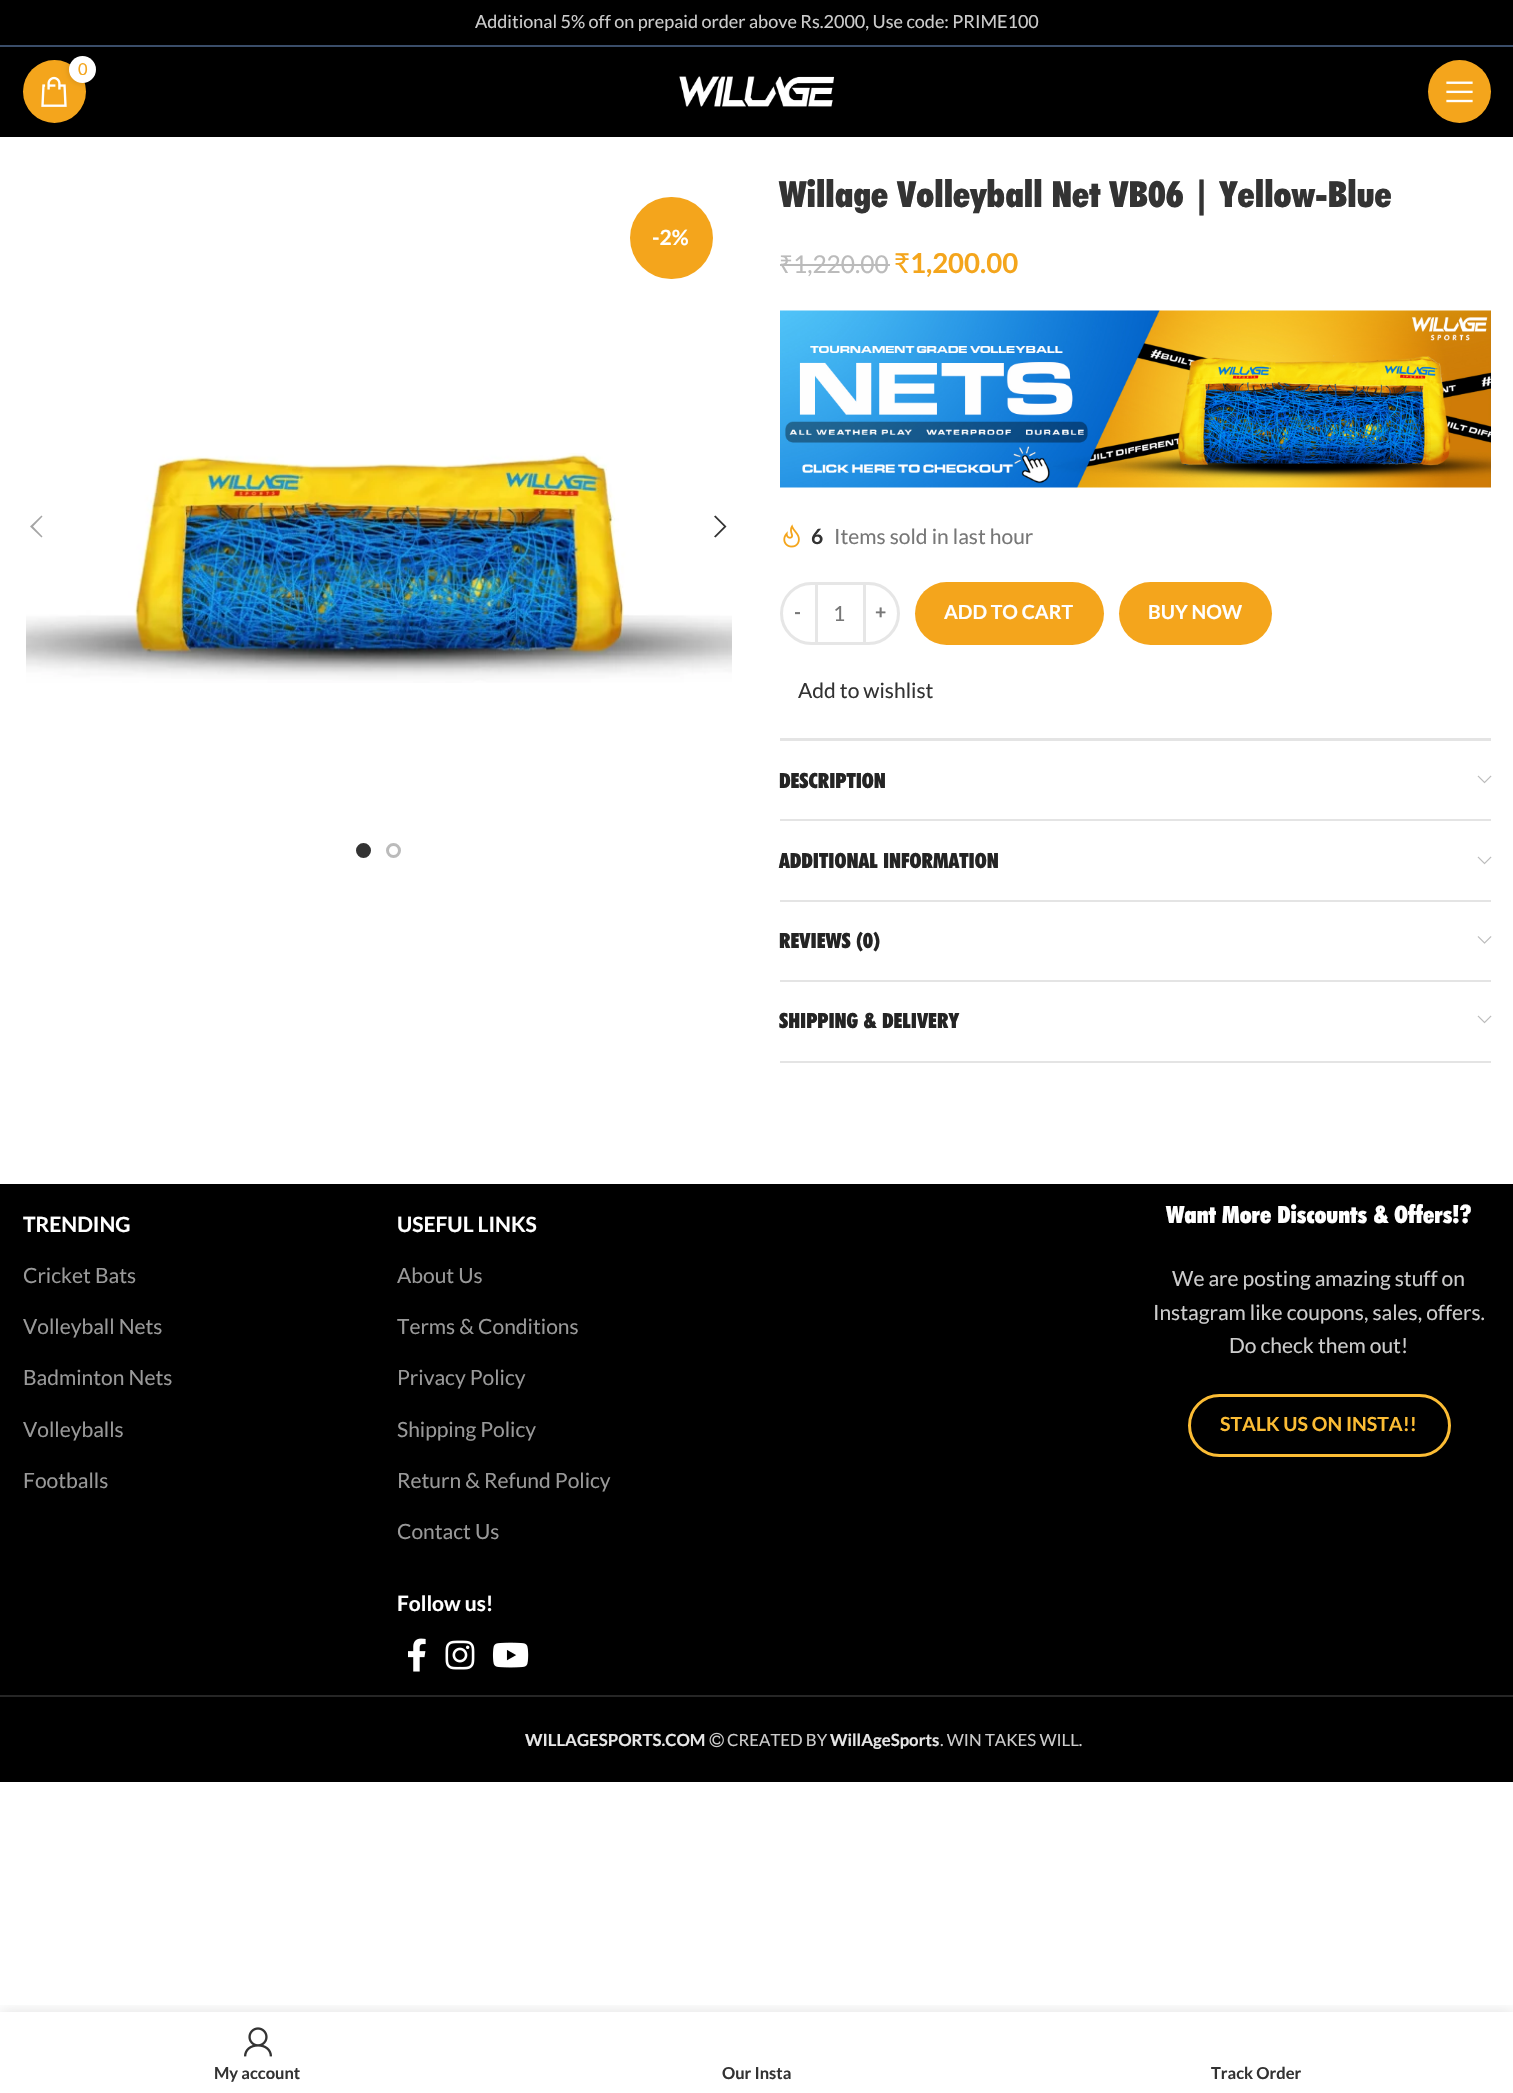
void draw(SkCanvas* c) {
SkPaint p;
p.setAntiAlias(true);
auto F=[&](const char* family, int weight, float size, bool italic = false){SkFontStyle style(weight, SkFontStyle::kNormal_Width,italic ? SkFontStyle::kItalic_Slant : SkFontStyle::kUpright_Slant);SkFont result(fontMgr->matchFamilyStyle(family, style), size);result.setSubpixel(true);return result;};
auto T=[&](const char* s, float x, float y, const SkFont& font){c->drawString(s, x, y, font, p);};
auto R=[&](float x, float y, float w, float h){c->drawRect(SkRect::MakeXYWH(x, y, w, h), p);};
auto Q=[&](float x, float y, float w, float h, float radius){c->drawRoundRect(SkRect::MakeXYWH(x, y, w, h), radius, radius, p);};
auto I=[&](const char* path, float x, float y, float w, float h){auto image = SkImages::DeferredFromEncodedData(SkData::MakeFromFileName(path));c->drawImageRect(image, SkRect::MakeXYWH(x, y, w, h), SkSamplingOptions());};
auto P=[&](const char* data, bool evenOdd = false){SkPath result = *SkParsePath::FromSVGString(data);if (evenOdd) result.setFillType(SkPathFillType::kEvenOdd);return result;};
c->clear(0xffffffff);
p.setColor(0xff000000);
R(0,0,1513,45);
p.setColor(0xff3a4d69);
R(0,45,1513,2);
auto f1 = F("Lato",400,18);
p.setColor(0xffcccccc);
T("Additional 5% off on prepaid order above Rs.2000, Use code: PRIME100",475,28,f1);
p.setColor(0xff000000);
R(0,47,1513,90);
p.setColor(0xfff4a51c);
c->drawCircle(54.5,91.5,31.5,p);
I("1.png",41,76,26,31);
p.setColor(0x2b000000);
p.setMaskFilter(SkMaskFilter::MakeBlur(kNormal_SkBlurStyle, 3));
c->drawRoundRect(SkRect::MakeXYWH(69,56,27,27),13.5,13.5,p);
p.setMaskFilter(nullptr);
p.setColor(0xffffffff);
c->drawCircle(82.5,69.5,13.5,p);
auto f2 = F("Lato",400,16.5);
p.setColor(0xfff4a51c);
T("0",78,75,f2);
c->drawCircle(1459.5,91.5,31.5,p);
I("2.png",1446,81,27,22);
I("3.png",679,76,156,31);
Q(630,197,83,82,41);
auto f3 = F("Lato",700,21);
p.setColor(0xffffffff);
T("-2%",652,245,f3);
I("4.png",26,453,706,230);
p.setColor(0xffa5a5a5);
c->drawPath(P("M42.5 516.5l-1-1l-11.5 11l11.5 11l1-1l-9.5-10z"),p);
p.setColor(0xff333333);
c->drawPath(P("M714 516.5l10 10l-10 10l1.5 1l11-11l-11-11z"),p);
c->drawCircle(363.5,850.5,6,p);
p.setStroke(true);
p.setStrokeWidth(3);
c->drawCircle(363.5,850.5,6,p);
p.setColor(0xffbbbbbb);
c->drawCircle(393.5,850.5,6,p);
auto f4 = F("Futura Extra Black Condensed",800,36);
p.setStroke(false);
p.setColor(0xff333333);
T("Willage Volleyball Net VB06 | Yellow-Blue",779,207,f4);
auto f5 = F("Noto Sans",400,24.5);
p.setColor(0xffbbbbbb);
T("₹",779,273,f5);
R(780,264,14,2);
auto f6 = F("Lato",400,24.5);
T("1,220.00",793,273,f6);
R(794,264,96,2);
auto f7 = F("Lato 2",400,27.5);
p.setColor(0xfff4a51c);
T("₹",894,273,f7);
auto f8 = F("Lato",700,27.5);
T("1,200.00",910,273,f8);
I("5.png",780,310,711,178);
I("6.png",783,524,17,24);
p.setColor(0xff333333);
T("6",811,544,f3);
auto f9 = F("Lato",400,21);
p.setColor(0xff777777);
T("Items sold in last hour",834,544,f9);
p.setStroke(true);
p.setColor(0xffe6e6e6);
c->drawPath(P("M811.5 583.5h5v60h-5c-16.5 0-30-13.5-30-30c0-16.5 13.5-30 30-30z"),p);
auto f10 = F("Lato",700,19.5);
p.setStroke(false);
p.setColor(0xff777777);
T("-",794,619,f10);
p.setColor(0xffe6e6e6);
R(818,582,45,3);
R(818,642,45,3);
p.setColor(0xff777777);
T("1",833,621,f9);
p.setStroke(true);
p.setColor(0xffe6e6e6);
c->drawPath(P("M864.5 583.5h4c16.5 0 30 13.5 30 30c0 16.5-13.5 30-30 30h-4z"),p);
p.setStroke(false);
p.setColor(0xff777777);
T("+",875,619,f10);
p.setColor(0xfff4a51c);
Q(915,582,189,63,31.5);
p.setColor(0xffffffff);
T("ADD TO CART",944,619,f10);
p.setColor(0xfff4a51c);
Q(1119,582,153,63,31.5);
p.setColor(0xffffffff);
T("BUY NOW",1148,619,f10);
p.setColor(0xff333333);
T("Add to wishlist",798,698,f9);
p.setColor(0xffe4e4e4);
R(780,738,711,3);
R(780,819,711,2);
auto f11 = F("Futura Extra Black Condensed",800,21);
p.setColor(0xff242424);
T("DESCRIPTION",779,788,f11);
I("7.png",1477,775,15,9);
p.setColor(0xffe4e4e4);
R(780,900,711,2);
p.setColor(0xff242424);
T("ADDITIONAL INFORMATION",779,868,f11);
I("7.png",1477,856,15,9);
p.setColor(0xffe4e4e4);
R(780,980,711,2);
p.setColor(0xff242424);
T("REVIEWS (0)",779,948,f11);
I("8.png",1477,936,15,8);
p.setColor(0xffe4e4e4);
R(780,1061,711,2);
p.setColor(0xff242424);
T("SHIPPING & DELIVERY",779,1028,f11);
I("7.png",1477,1015,15,9);
p.setColor(0xff000000);
R(0,1184,1513,598);
p.setColor(0xffffffff);
T("TRENDING",23,1232,f3);
p.setColor(0xff999999);
T("Cricket Bats",23,1283,f9);
T("Volleyball Nets",23,1334,f9);
T("Badminton Nets",23,1385,f9);
T("Volleyballs",23,1437,f9);
T("Footballs",23,1488,f9);
p.setColor(0xffffffff);
T("USEFUL LINKS",397,1232,f3);
p.setColor(0xff999999);
T("About Us",397,1283,f9);
T("Terms & Conditions",397,1334,f9);
T("Privacy Policy",397,1385,f9);
T("Shipping Policy",397,1437,f9);
T("Return & Refund Policy",397,1488,f9);
T("Contact Us",397,1539,f9);
p.setColor(0xffffffff);
T("Follow us!",397,1611,f3);
I("9.png",408,1638,18,34);
I("10.png",445,1640,30,30);
I("11.png",492,1642,37,26);
auto f12 = F("Futura Extra Black Condensed",800,24);
T("Want More Discounts & Offers!?",1166,1223,f12);
p.setColor(0xffcccccc);
T("We are posting amazing stuff on",1172,1286,f9);
T("Instagram like coupons, sales, offers.",1153,1320,f9);
T("Do check them out!",1229,1353,f9);
p.setStroke(true);
p.setColor(0xfffbbc34);
c->drawRoundRect(SkRect::MakeXYWH(1189.5,1395.5,260,60),30,30,p);
p.setStroke(false);
T("STALK US ON INSTA!!",1220,1431,f10);
p.setColor(0xff262626);
R(0,1695,1513,2);
auto f13 = F("Lato",700,16.75);
p.setColor(0xffe6e6e6);
T("WILLAGESPORTS.COM",525,1746,f13);
I("12.png",709,1732,15,16);
auto f14 = F("Lato",400,16.75);
p.setColor(0xffcccccc);
T("CREATED BY",727,1746,f14);
p.setColor(0xffe6e6e6);
T("WillAgeSports",830,1746,f13);
p.setColor(0xffcccccc);
T(". WIN TAKES WILL.",940,1746,f14);
c->save();
c->clipRect(SkRect::MakeXYWH(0,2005,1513,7));
p.setColor(0x1f000000);
p.setMaskFilter(SkMaskFilter::MakeBlur(kNormal_SkBlurStyle, 7));
c->drawRect(SkRect::MakeXYWH(0,2012,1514,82),p);
p.setMaskFilter(nullptr);
c->restore();
I("13.png",244,2027,28,30);
auto f15 = F("Lato",700,16.5);
p.setColor(0xff333333);
T("My account",214,2079,f15);
T("Our Insta",722,2079,f15);
T("Track Order",1211,2079,f15);
}
